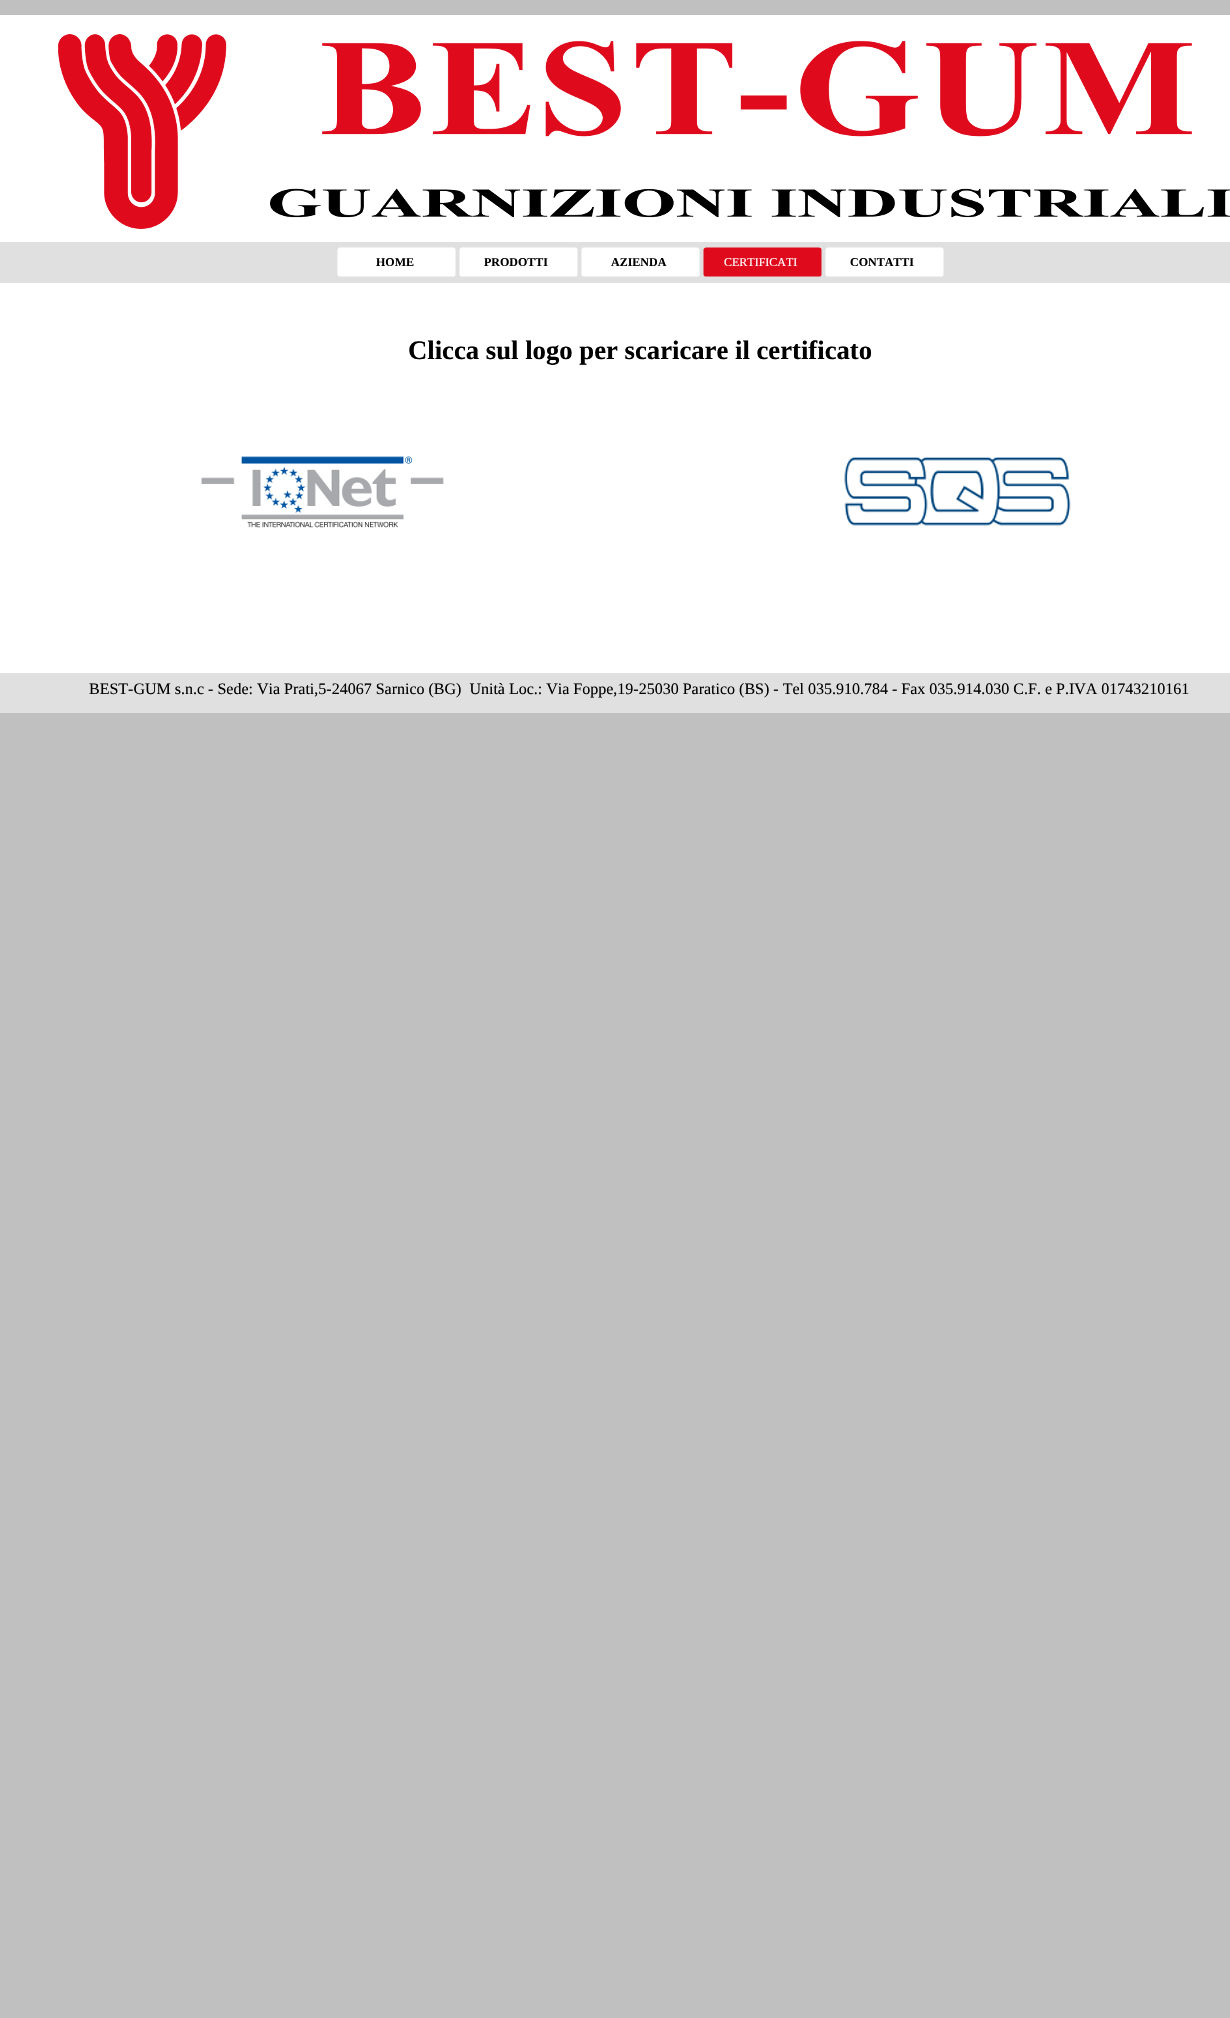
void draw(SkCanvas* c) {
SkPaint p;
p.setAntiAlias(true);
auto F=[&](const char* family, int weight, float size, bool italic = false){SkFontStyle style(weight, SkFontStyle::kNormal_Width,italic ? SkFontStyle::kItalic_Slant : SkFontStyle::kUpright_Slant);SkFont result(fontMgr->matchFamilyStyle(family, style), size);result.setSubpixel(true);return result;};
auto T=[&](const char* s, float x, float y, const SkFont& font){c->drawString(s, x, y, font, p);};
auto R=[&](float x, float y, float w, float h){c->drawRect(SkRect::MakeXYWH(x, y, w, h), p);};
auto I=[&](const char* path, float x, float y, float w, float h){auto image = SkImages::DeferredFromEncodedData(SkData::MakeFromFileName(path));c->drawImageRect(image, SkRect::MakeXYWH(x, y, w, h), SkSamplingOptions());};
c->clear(0xffc0c0c0);
p.setColor(0xffffffff);
R(0,15,1230,227);
I("1.png",58,34,1172,195);
p.setColor(0xffe0e0e0);
R(0,242,1230,41);
I("2.png",337,247,119,30);
auto f1 = F("Liberation Serif",700,12);
p.setColor(0xff000000);
T("HOME",376,266,f1);
I("2.png",459,247,119,30);
T("PRODOTTI",484,266,f1);
I("2.png",581,247,119,30);
T("AZIENDA",611,266,f1);
I("3.png",703,247,119,30);
auto f2 = F("Liberation Serif",400,12);
p.setColor(0xffffffff);
T("CERTIFICATI",724,266,f2);
I("2.png",825,247,119,30);
p.setColor(0xff000000);
T("CONTATTI",850,266,f1);
p.setColor(0xffffffff);
R(0,283,1230,390);
auto f3 = F("Liberation Serif",700,26.7);
p.setColor(0xff000000);
T("Clicca sul logo per scaricare il certificato",408,359,f3);
I("4.png",201,456,243,72);
I("5.png",844,457,227,69);
p.setColor(0xffe0e0e0);
R(0,673,1230,40);
auto f4 = F("Liberation Serif",400,16);
p.setColor(0xff000000);
T("BEST-GUM s.n.c - Sede: Via Prati,5-24067 Sarnico (BG)  Unità Loc.: Via Foppe,19-25030 Paratico (BS) - Tel 035.910.784 - Fax 035.914.030 C.F. e P.IVA 01743210161",89,694,f4);
}
